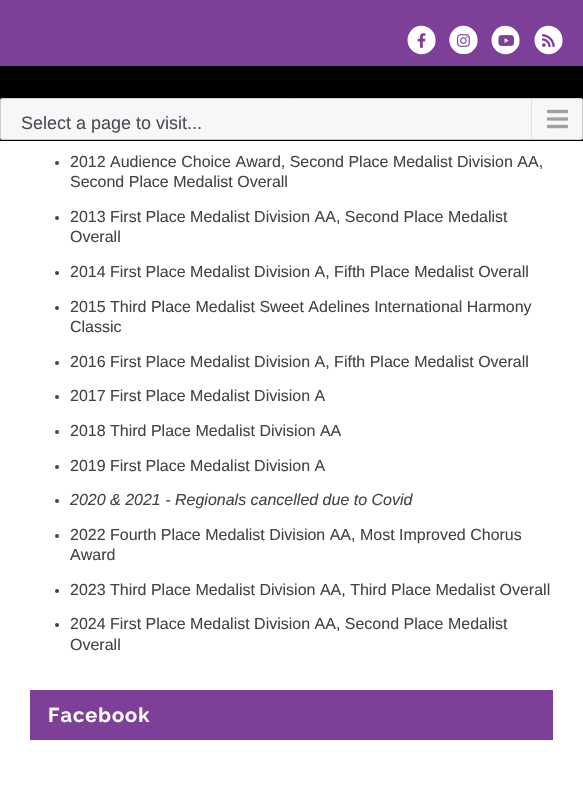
void draw(SkCanvas* c) {
SkPaint p;
p.setAntiAlias(true);
auto F=[&](const char* family, int weight, float size, bool italic = false){SkFontStyle style(weight, SkFontStyle::kNormal_Width,italic ? SkFontStyle::kItalic_Slant : SkFontStyle::kUpright_Slant);SkFont result(fontMgr->matchFamilyStyle(family, style), size);result.setSubpixel(true);return result;};
auto T=[&](const char* s, float x, float y, const SkFont& font){c->drawString(s, x, y, font, p);};
auto L=[&](const char* s, float x, float y, const SkFont& font, const SkPaint& ink, float letter, float word){std::vector<SkGlyphID> glyphs(font.countText(s, strlen(s), SkTextEncoding::kUTF8));std::vector<float> xs(glyphs.size());font.textToGlyphs(s, strlen(s), SkTextEncoding::kUTF8, glyphs);font.getXPos(glyphs, xs, x);float extra = 0;for (size_t i = 0; i < glyphs.size(); i++) {xs[i] += extra;extra += letter + word * (glyphs[i] == font.unicharToGlyph(' '));}c->drawTextBlob(SkTextBlob::MakeFromPosHGlyphs(glyphs, xs, y, font), 0, 0, ink);};
auto R=[&](float x, float y, float w, float h){c->drawRect(SkRect::MakeXYWH(x, y, w, h), p);};
auto I=[&](const char* path, float x, float y, float w, float h){auto image = SkImages::DeferredFromEncodedData(SkData::MakeFromFileName(path));c->drawImageRect(image, SkRect::MakeXYWH(x, y, w, h), SkSamplingOptions());};
auto P=[&](const char* data, bool evenOdd = false){SkPath result = *SkParsePath::FromSVGString(data);if (evenOdd) result.setFillType(SkPathFillType::kEvenOdd);return result;};
c->clear(0xffffffff);
p.setColor(0xff7e3f98);
R(0,0,583,66);
p.setColor(0xffffffff);
c->drawPath(P("M411.5 30c9.5-9.5 25.5-1.5 24 11.5c0 3.5-1.5 6-4 8.5c-9.5 9.5-25 2-24-11.5c.5-3 2-6 4-8.5z"),p);
I("1.png",417,33,9,15);
c->drawPath(P("M453.5 30c9.5-9.5 25.5-1.5 24 11.5c0 3.5-1.5 6-4 8.5c-2 2.5-5 4-8.5 4c-13 1.5-21-14.5-11.5-24z"),p);
I("2.png",457,34,13,13);
c->drawPath(P("M495.5 30c9.5-9.5 25.5-1.5 24 11.5c0 3.5-1.5 6-4 8.5c-9.5 9.5-25 2-24-11.5c.5-3 2-6 4-8.5z"),p);
I("3.png",498,35,16,11);
c->drawPath(P("M538.5 30c9.5-9.5 25.5-1.5 24 11.5c0 3.5-1.5 6-4 8.5c-9.5 9.5-25 2-24-11.5c.5-3 2-6 4-8.5z"),p);
I("4.png",542,34,13,13);
p.setColor(0xff000000);
R(0,66,583,75);
p.setColor(0xfff7f7f7);
c->drawRoundRect(SkRect::MakeXYWH(.5,98.5,582,41),1.5,1.5,p);
p.setStroke(true);
p.setStrokeWidth(1);
p.setColor(0xffcccccc);
c->drawRoundRect(SkRect::MakeXYWH(.5,98.5,582,41),1.5,1.5,p);
auto f1 = F("Liberation Sans",400,18);
p.setStroke(false);
p.setColor(0xff4a4e57);
T("Select a page to visit...",21,129,f1);
p.setColor(0xffe2e2e2);
R(531,99,1,40);
I("5.png",547,109,21,20);
p.setColor(0xff444444);
c->drawCircle(57,163,2,p);
auto f2 = F("Liberation Sans",400,16);
T("2012 Audience Choice Award, Second Place Medalist Division AA,",70,167,f2);
T("Second Place Medalist Overall",70,187,f2);
c->drawCircle(57,218,2,p);
T("2013 First Place Medalist Division AA, Second Place Medalist",70,222,f2);
T("Overall",70,242,f2);
c->drawCircle(57,273,2,p);
T("2014 First Place Medalist Division A, Fifth Place Medalist Overall",70,277,f2);
c->drawCircle(57,308,2,p);
T("2015 Third Place Medalist Sweet Adelines International Harmony",70,312,f2);
T("Classic",70,332,f2);
c->drawCircle(57,363,2,p);
T("2016 First Place Medalist Division A, Fifth Place Medalist Overall",70,367,f2);
c->drawCircle(57,397,2,p);
T("2017 First Place Medalist Division A",70,401,f2);
c->drawCircle(57,432,2,p);
T("2018 Third Place Medalist Division AA",70,436,f2);
c->drawCircle(57,467,2,p);
T("2019 First Place Medalist Division A",70,471,f2);
c->drawCircle(57,501,2,p);
auto f3 = F("Liberation Sans",400,16,true);
T("2020 & 2021 - Regionals cancelled due to Covid",70,505,f3);
c->drawCircle(57,536,2,p);
T("2022 Fourth Place Medalist Division AA, Most Improved Chorus",70,540,f2);
T("Award",70,560,f2);
c->drawCircle(57,591,2,p);
T("2023 Third Place Medalist Division AA, Third Place Medalist Overall",70,595,f2);
c->drawCircle(57,625,2,p);
T("2024 First Place Medalist Division AA, Second Place Medalist",70,629,f2);
T("Overall",70,650,f2);
p.setColor(0xff7e3f98);
R(30,690,523,50);
auto f4 = F("Raleway",700,20);
p.setColor(0xffffffff);
L("Facebook",48,722,f4,p,1,0);
}
